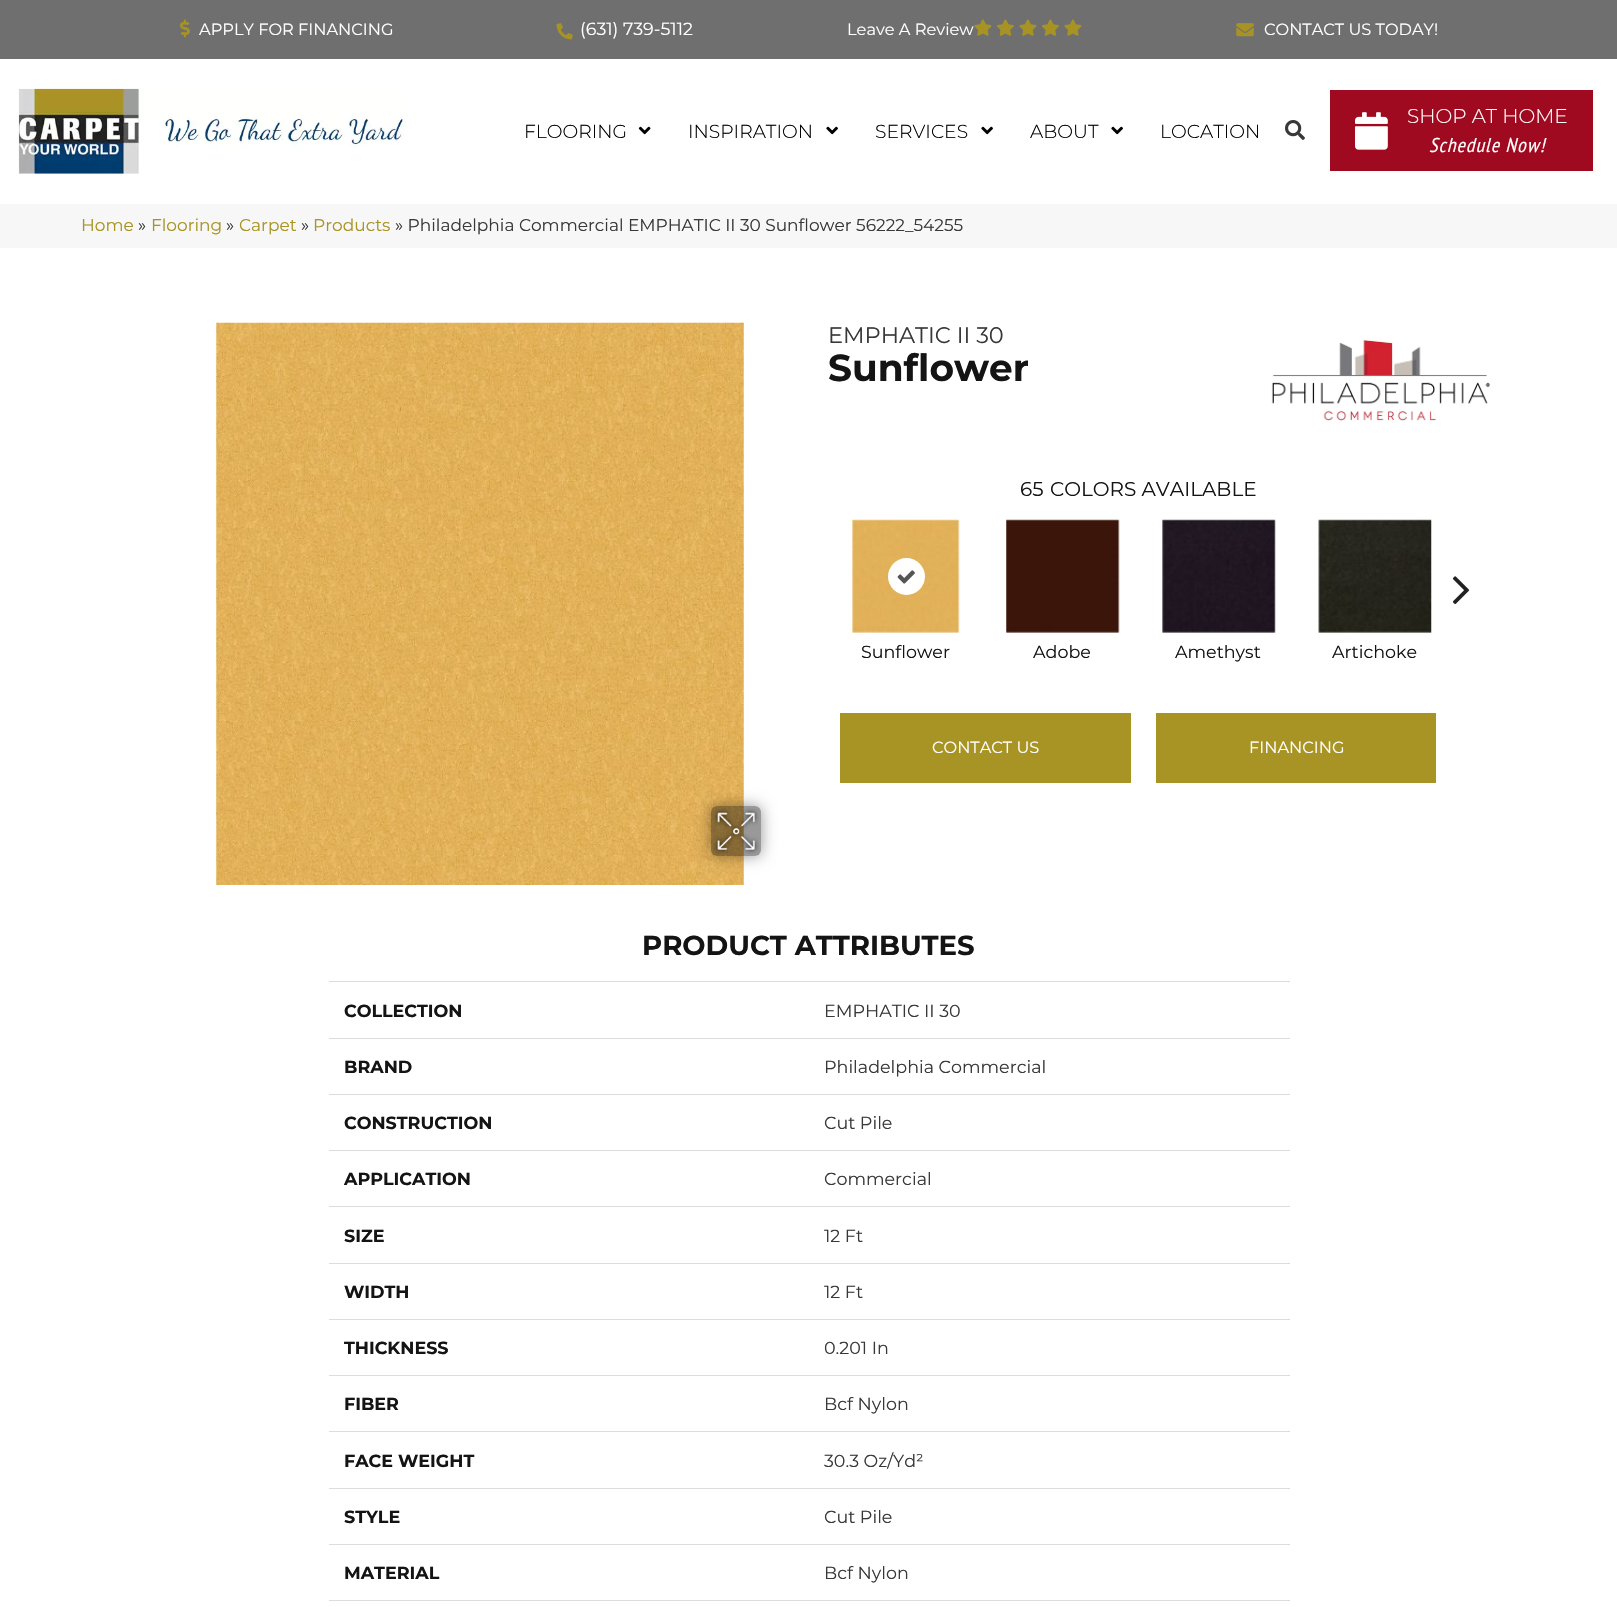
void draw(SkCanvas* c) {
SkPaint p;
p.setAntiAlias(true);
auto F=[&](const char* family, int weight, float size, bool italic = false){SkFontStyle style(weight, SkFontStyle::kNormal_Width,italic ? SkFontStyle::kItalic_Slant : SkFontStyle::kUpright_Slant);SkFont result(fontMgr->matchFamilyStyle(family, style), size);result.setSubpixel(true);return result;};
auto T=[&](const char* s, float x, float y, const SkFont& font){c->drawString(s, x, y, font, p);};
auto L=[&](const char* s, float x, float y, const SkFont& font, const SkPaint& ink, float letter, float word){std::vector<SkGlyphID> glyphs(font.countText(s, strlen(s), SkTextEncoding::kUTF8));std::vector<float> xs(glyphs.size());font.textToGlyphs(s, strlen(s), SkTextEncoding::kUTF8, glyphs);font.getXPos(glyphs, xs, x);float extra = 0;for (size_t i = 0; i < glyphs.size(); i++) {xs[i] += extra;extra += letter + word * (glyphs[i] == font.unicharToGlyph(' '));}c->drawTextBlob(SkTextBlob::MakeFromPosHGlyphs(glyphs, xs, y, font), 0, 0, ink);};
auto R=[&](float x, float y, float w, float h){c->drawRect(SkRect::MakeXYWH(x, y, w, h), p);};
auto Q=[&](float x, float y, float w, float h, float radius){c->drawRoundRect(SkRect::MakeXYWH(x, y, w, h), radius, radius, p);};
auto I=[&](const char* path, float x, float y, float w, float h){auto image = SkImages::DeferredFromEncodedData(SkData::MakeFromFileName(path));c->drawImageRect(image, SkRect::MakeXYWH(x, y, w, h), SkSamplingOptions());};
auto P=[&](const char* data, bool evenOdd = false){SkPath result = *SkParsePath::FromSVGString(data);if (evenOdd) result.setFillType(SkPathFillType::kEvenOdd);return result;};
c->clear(0xffffffff);
p.setColor(0xff6f6f6f);
R(0,0,1617,59);
I("1.png",180,19,10,19);
auto f1 = F("Montserrat",400,16.25);
p.setColor(0xffffffff);
T("APPLY FOR FINANCING",199,35,f1);
I("2.png",556,23,17,17);
auto f2 = F("Montserrat",400,17.5);
T("(631) 739-5112",580,35,f2);
T("Leave A Review",847,35,f1);
I("3.png",974,19,18,17);
I("4.png",997,19,17,17);
I("3.png",1019,19,18,17);
I("4.png",1042,19,17,17);
I("3.png",1064,19,18,17);
I("5.png",1236,23,18,14);
T("CONTACT US TODAY!",1264,35,f1);
I("6.png",18,88,388,86);
auto f3 = F("Montserrat",300,18.75);
p.setColor(0xff000000);
T("FLOORING",524,138,f3);
I("7.png",638,126,13,9);
T("INSPIRATION",688,138,f3);
I("8.png",826,126,12,9);
T("SERVICES",875,138,f3);
I("8.png",981,126,12,9);
T("ABOUT",1030,138,f3);
I("8.png",1111,126,12,9);
T("LOCATION",1160,138,f3);
I("9.png",1285,120,20,20);
p.setColor(0xffa00a20);
R(1330,90,263,81);
I("10.png",1355,112,33,38);
auto f4 = F("Montserrat",300,20);
p.setColor(0xffffffff);
T("SHOP AT HOME",1407,123,f4);
auto f5 = F("PT Sans Narrow",400,20,true);
L("Schedule Now!",1429,152,f5,p,1,0);
p.setColor(0xfff7f7f7);
R(0,204,1617,44);
auto f6 = F("Montserrat",400,17);
p.setColor(0xffa89424);
T("Home",81,231,f6);
p.setColor(0xff383838);
T("»",138,231,f6);
p.setColor(0xffa89424);
T("Flooring",151,231,f6);
p.setColor(0xff383838);
T("»",226,231,f6);
p.setColor(0xffa89424);
T("Carpet",239,231,f6);
p.setColor(0xff383838);
T("»",301,231,f6);
p.setColor(0xffa89424);
T("Products",313,231,f6);
p.setColor(0xff383838);
T("» Philadelphia Commercial EMPHATIC II 30 Sunflower 56222_54255",395,231,f6);
I("11.png",216,322,528,563);
c->save();
c->clipPath(P("M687 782h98v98h-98zm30 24h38c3.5 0 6 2.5 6 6v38c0 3.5-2.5 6-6 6h-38c-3.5 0-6-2.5-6-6v-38c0-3.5 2.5-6 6-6z",true),true);
p.setColor(0x69000000);
p.setMaskFilter(SkMaskFilter::MakeBlur(kNormal_SkBlurStyle, 7.5));
c->drawRoundRect(SkRect::MakeXYWH(711,806,50,50),6,6,p);
p.setMaskFilter(nullptr);
c->restore();
p.setColor(0x66000000);
Q(711,806,50,50,6);
I("12.png",713,808,46,46);
auto f7 = F("Montserrat",400,22.5);
p.setColor(0xff383838);
T("EMPHATIC II 30",828,343,f7);
auto f8 = F("Montserrat",700,37.5);
p.setColor(0xff141414);
T("Sunflower",828,381,f8);
I("13.png",1271,340,219,81);
auto f9 = F("Montserrat",400,20);
T("65",1020,496,f9);
T("COLORS AVAILABLE",1050,496,f9);
I("14.png",1452,576,18,29);
I("15.png",852,519,108,114);
p.setColor(0xffffffff);
c->drawCircle(906.5,576.5,18.5,p);
I("16.png",897,570,18,14);
p.setColor(0xff141414);
T("Sunflower",861,658,f2);
I("17.png",1006,519,114,114);
T("Adobe",1033,658,f2);
I("18.png",1162,519,114,114);
T("Amethyst",1175,658,f2);
I("19.png",1318,519,114,114);
T("Artichoke",1332,658,f2);
p.setColor(0xffa89424);
R(840,713,291,70);
p.setColor(0xffffffff);
T("CONTACT US",932,753,f1);
p.setColor(0xffa89424);
R(1156,713,280,70);
p.setColor(0xffffffff);
T("FINANCING",1249,753,f1);
auto f10 = F("Montserrat",700,27.5);
p.setColor(0xff141414);
T("PRODUCT ATTRIBUTES",642,955,f10);
auto f11 = F("Montserrat",700,17.5);
T("COLLECTION",344,1017,f11);
p.setColor(0xffdddddd);
R(329,981,961,1);
p.setColor(0xff383838);
T("EMPHATIC II 30",824,1017,f2);
p.setColor(0xff141414);
T("BRAND",344,1073,f11);
p.setColor(0xffdddddd);
R(329,1038,961,1);
p.setColor(0xff383838);
T("Philadelphia Commercial",824,1073,f2);
p.setColor(0xff141414);
T("CONSTRUCTION",344,1129,f11);
p.setColor(0xffdddddd);
R(329,1094,961,1);
p.setColor(0xff383838);
T("Cut Pile",824,1129,f2);
p.setColor(0xff141414);
T("APPLICATION",344,1185,f11);
p.setColor(0xffdddddd);
R(329,1150,961,1);
p.setColor(0xff383838);
T("Commercial",824,1185,f2);
p.setColor(0xff141414);
T("SIZE",344,1242,f11);
p.setColor(0xffdddddd);
R(329,1206,961,1);
p.setColor(0xff383838);
T("12 Ft",824,1242,f2);
p.setColor(0xff141414);
T("WIDTH",344,1298,f11);
p.setColor(0xffdddddd);
R(329,1263,961,1);
p.setColor(0xff383838);
T("12 Ft",824,1298,f2);
p.setColor(0xff141414);
T("THICKNESS",344,1354,f11);
p.setColor(0xffdddddd);
R(329,1319,961,1);
p.setColor(0xff383838);
T("0.201 In",824,1354,f2);
p.setColor(0xff141414);
T("FIBER",344,1410,f11);
p.setColor(0xffdddddd);
R(329,1375,961,1);
p.setColor(0xff383838);
T("Bcf Nylon",824,1410,f2);
p.setColor(0xff141414);
T("FACE WEIGHT",344,1467,f11);
p.setColor(0xffdddddd);
R(329,1431,961,1);
p.setColor(0xff383838);
T("30.3 Oz/Yd²",824,1467,f2);
p.setColor(0xff141414);
T("STYLE",344,1523,f11);
p.setColor(0xffdddddd);
R(329,1488,961,1);
p.setColor(0xff383838);
T("Cut Pile",824,1523,f2);
p.setColor(0xff141414);
T("MATERIAL",344,1579,f11);
p.setColor(0xffdddddd);
R(329,1544,961,1);
p.setColor(0xff383838);
T("Bcf Nylon",824,1579,f2);
p.setColor(0xffdddddd);
R(329,1600,961,1);
}
